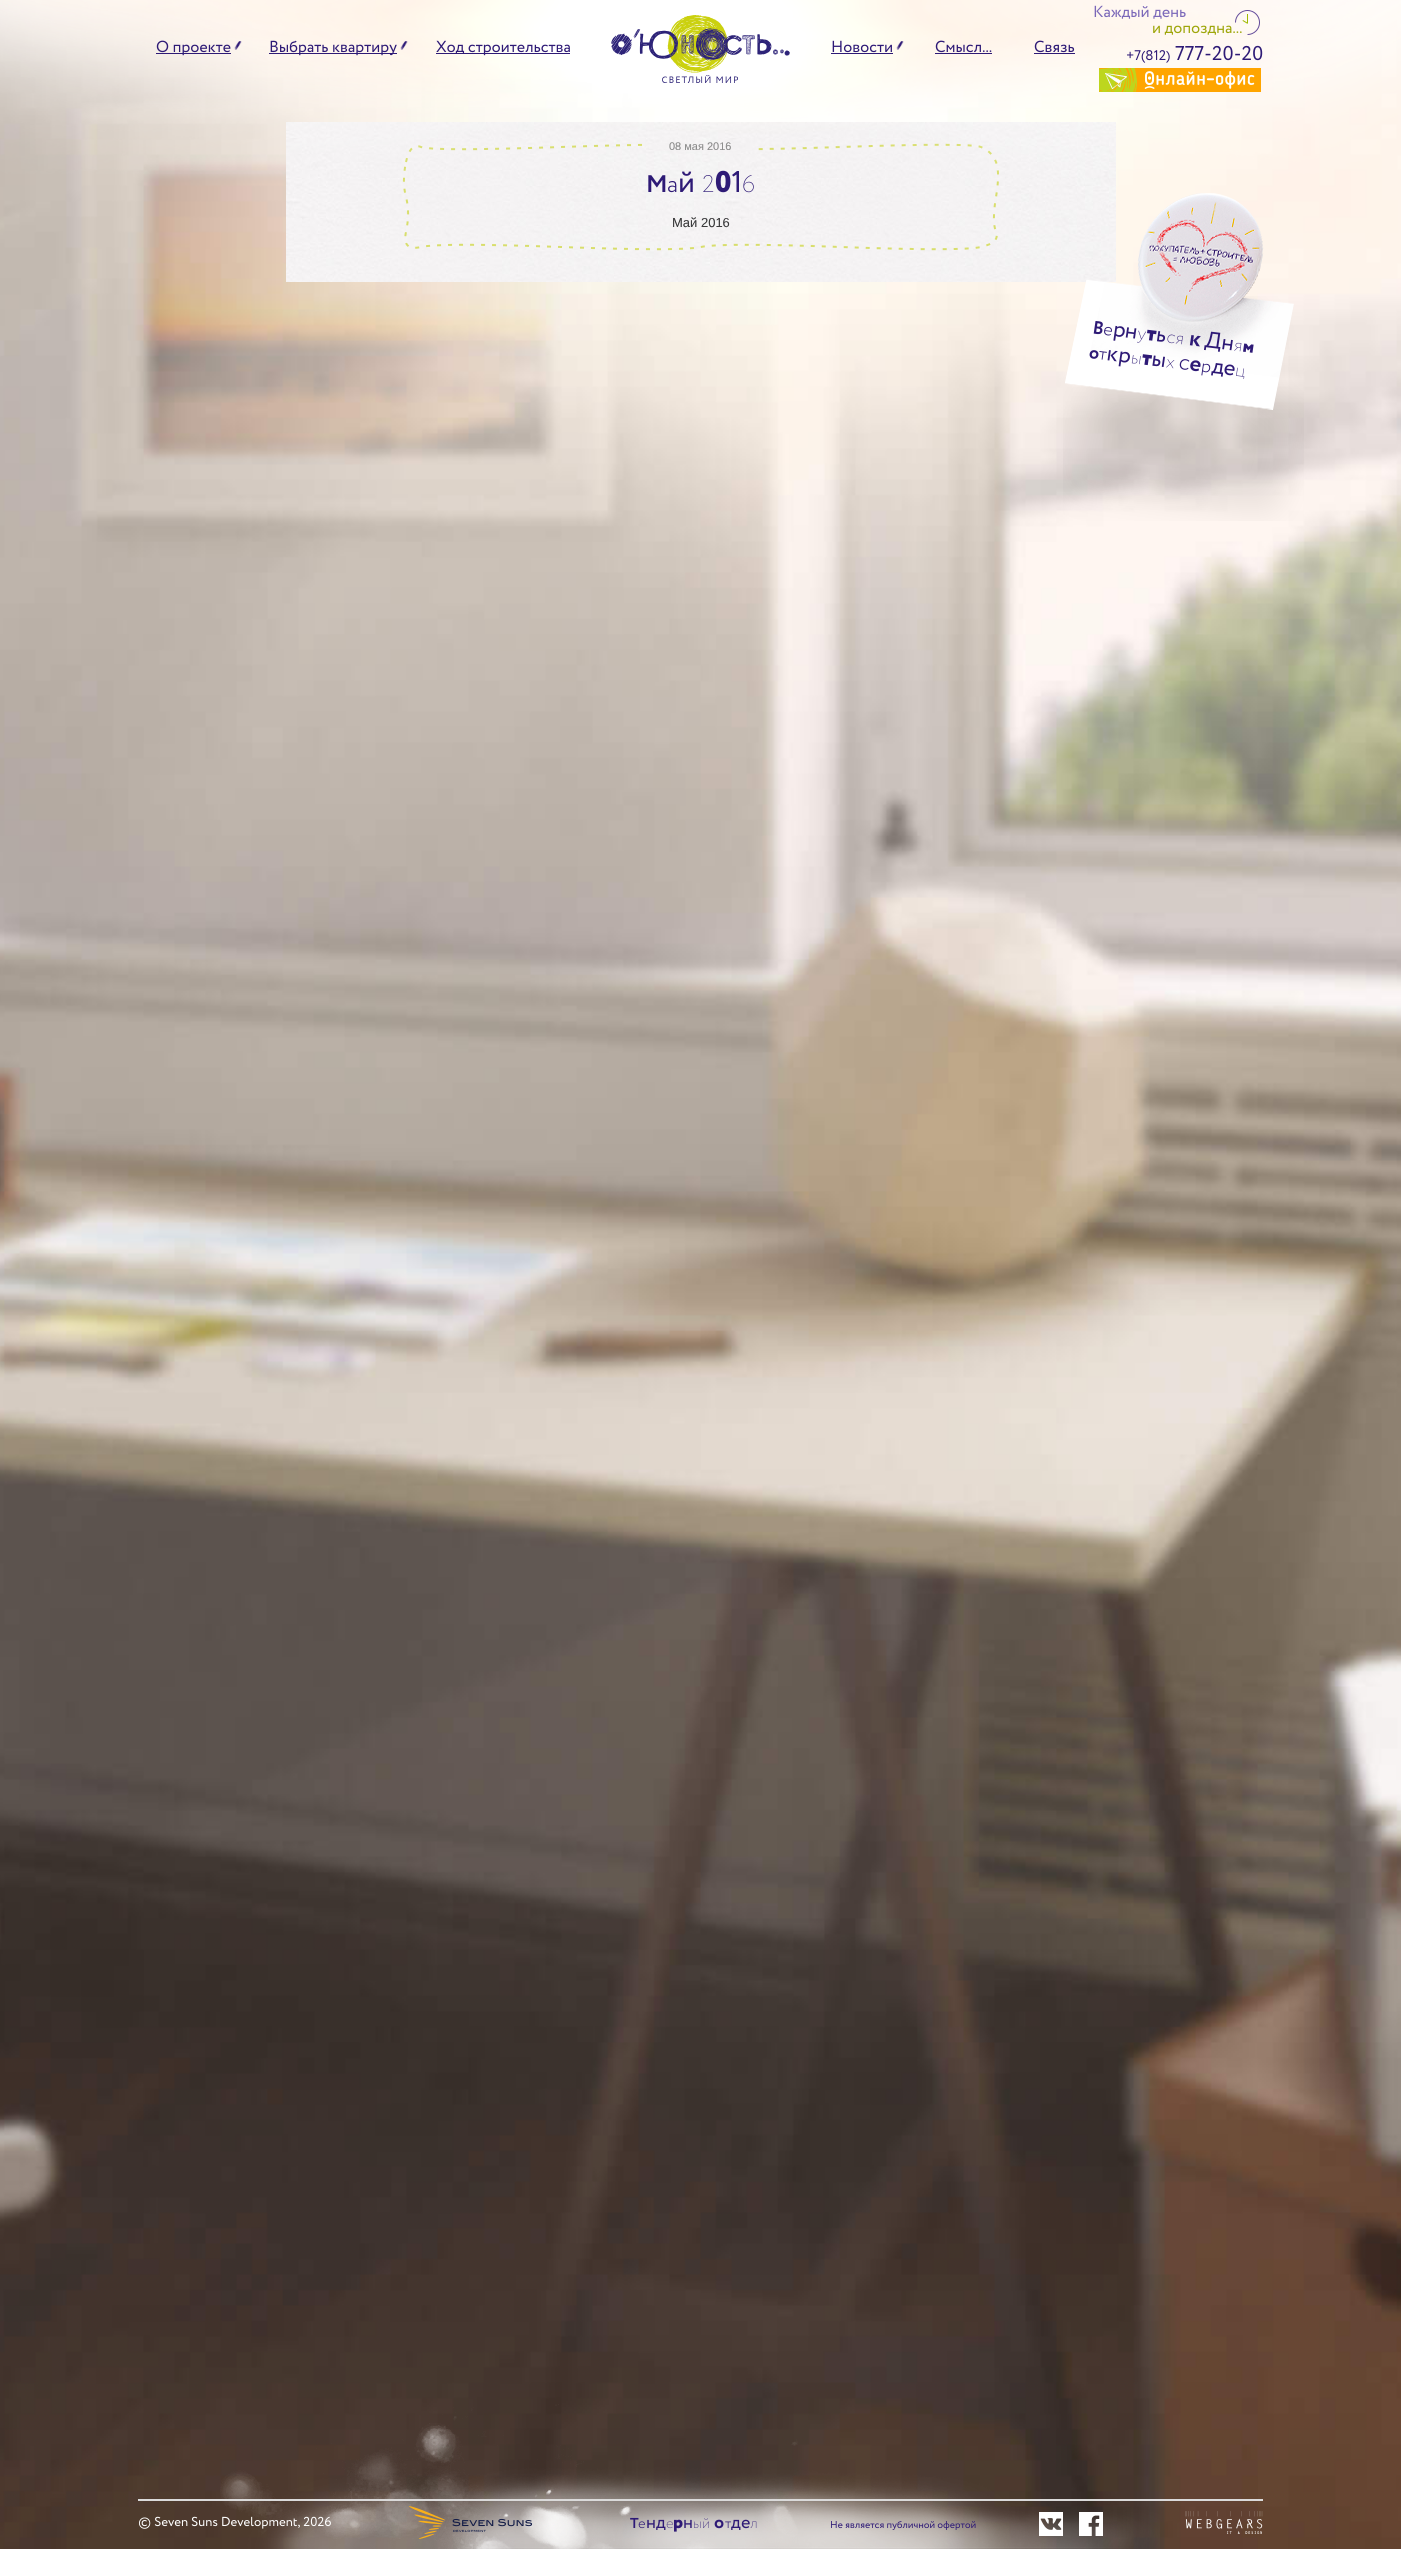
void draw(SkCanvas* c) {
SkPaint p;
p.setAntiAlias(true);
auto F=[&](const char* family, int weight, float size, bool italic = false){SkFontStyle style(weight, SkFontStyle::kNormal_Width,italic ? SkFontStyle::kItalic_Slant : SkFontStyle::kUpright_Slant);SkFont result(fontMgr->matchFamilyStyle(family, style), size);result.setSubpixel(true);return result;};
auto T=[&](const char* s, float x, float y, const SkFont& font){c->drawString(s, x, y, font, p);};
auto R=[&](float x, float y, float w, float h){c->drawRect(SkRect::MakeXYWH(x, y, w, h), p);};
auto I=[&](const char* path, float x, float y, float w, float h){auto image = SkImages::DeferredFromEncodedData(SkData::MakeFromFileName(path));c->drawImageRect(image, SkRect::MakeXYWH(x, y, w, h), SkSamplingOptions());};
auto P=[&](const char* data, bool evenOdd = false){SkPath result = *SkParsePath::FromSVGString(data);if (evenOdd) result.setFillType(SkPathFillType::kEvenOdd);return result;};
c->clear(0xffffffff);
I("1.png",0,0,1401,2549);
I("20.png",286,122,830,160);
I("23.png",648,175,18,17);
I("24.png",668,181,9,12);
I("25.png",680,171,13,21);
I("26.png",703,175,11,17);
I("27.png",715,170,16,23);
p.setColor(0xff2e1a76);
c->drawPath(P("M733.5 176.5l-1.5-1.5l5-4h2v21h-2.5v-17.5z"),p);
I("28.png",743,175,11,18);
auto f1 = F("Liberation Sans",400,13);
p.setColor(0xff3b3b3c);
T("Май 2016",672,227,f1);
I("22.png",402,143,597,108);
I("21.png",649,143,103,8);
auto f2 = F("Liberation Sans",400,11);
p.setColor(0xff8b8b8b);
T("08 мая 2016",669,150,f2);
I("2.png",0,0,1401,174);
p.setColor(0xff2e1a76);
R(156,53,75,1);
I("3.png",156,40,75,16);
I("4.png",234,41,8,9);
R(269,53,128,1);
I("5.png",270,40,127,16);
I("6.png",400,41,8,9);
R(436,53,134,1);
I("7.png",436,40,134,16);
I("8.png",611,15,179,68);
I("9.png",832,40,60,13);
I("10.png",896,41,8,9);
R(831,53,62,1);
I("11.png",935,40,57,13);
R(935,53,57,1);
I("12.png",1034,40,41,13);
R(1034,53,41,1);
I("13.png",1094,5,92,14);
I("14.png",1153,25,89,10);
I("15.png",1235,10,25,25);
I("16.png",1127,50,43,13);
I("17.png",1175,45,88,16);
p.setColor(0xffffa500);
R(1099,68,162,24);
I("18.png",1144,71,111,18);
I("19.png",1099,68,38,24);
I("58.png",1063,296,241,225);
I("29.png",1065,193,229,217);
I("30.png",1093,321,10,14);
I("31.png",1104,326,8,10);
I("32.png",1113,325,12,16);
I("33.png",1125,327,12,12);
I("34.png",1137,330,9,13);
I("35.png",1147,329,10,12);
I("36.png",1157,331,9,11);
I("37.png",1167,334,8,10);
I("38.png",1175,335,8,10);
I("39.png",1189,335,12,12);
I("40.png",1204,331,17,21);
I("41.png",1222,339,11,12);
I("42.png",1234,342,8,10);
I("43.png",1243,343,11,10);
I("44.png",1089,350,10,9);
I("45.png",1099,351,8,9);
I("46.png",1107,350,11,12);
I("47.png",1118,351,12,16);
I("48.png",1131,355,10,10);
I("49.png",1142,354,11,12);
I("50.png",1152,355,13,12);
I("51.png",1166,359,9,10);
I("52.png",1179,359,11,11);
I("53.png",1190,360,11,12);
I("54.png",1201,363,10,13);
I("55.png",1211,363,13,14);
I("56.png",1224,364,11,12);
I("57.png",1236,367,9,12);
I("59.png",220,2404,940,145);
p.setColor(0xffdadada);
R(138,2499,1125,2);
I("60.png",139,2516,192,13);
I("61.png",409,2506,123,33);
I("62.png",630,2517,9,11);
I("63.png",638,2521,7,8);
I("64.png",647,2519,8,9);
I("65.png",656,2519,10,11);
I("66.png",666,2521,7,8);
I("67.png",674,2519,9,13);
I("68.png",684,2519,8,9);
I("69.png",694,2521,7,7);
I("70.png",703,2518,6,10);
I("71.png",714,2519,10,10);
I("72.png",725,2521,7,7);
I("73.png",731,2519,10,11);
I("74.png",741,2519,9,10);
I("75.png",750,2521,7,7);
I("76.png",831,2521,145,9);
I("77.png",1039,2512,24,24);
I("78.png",1079,2512,24,24);
I("79.png",1185,2511,78,23);
}
